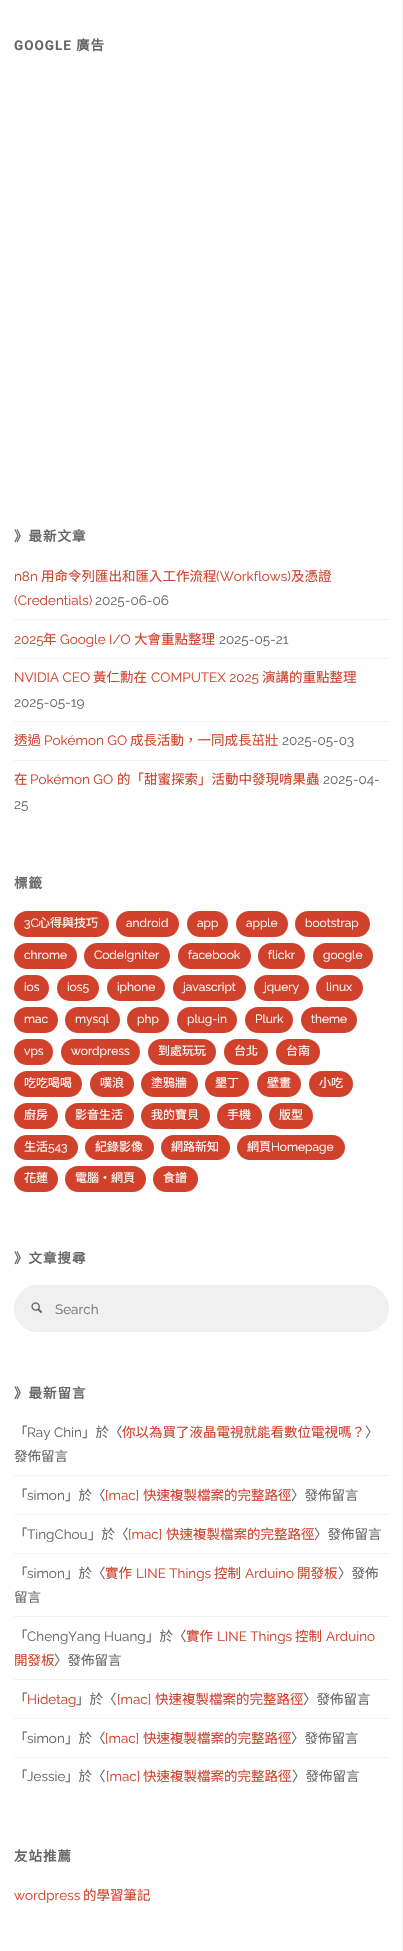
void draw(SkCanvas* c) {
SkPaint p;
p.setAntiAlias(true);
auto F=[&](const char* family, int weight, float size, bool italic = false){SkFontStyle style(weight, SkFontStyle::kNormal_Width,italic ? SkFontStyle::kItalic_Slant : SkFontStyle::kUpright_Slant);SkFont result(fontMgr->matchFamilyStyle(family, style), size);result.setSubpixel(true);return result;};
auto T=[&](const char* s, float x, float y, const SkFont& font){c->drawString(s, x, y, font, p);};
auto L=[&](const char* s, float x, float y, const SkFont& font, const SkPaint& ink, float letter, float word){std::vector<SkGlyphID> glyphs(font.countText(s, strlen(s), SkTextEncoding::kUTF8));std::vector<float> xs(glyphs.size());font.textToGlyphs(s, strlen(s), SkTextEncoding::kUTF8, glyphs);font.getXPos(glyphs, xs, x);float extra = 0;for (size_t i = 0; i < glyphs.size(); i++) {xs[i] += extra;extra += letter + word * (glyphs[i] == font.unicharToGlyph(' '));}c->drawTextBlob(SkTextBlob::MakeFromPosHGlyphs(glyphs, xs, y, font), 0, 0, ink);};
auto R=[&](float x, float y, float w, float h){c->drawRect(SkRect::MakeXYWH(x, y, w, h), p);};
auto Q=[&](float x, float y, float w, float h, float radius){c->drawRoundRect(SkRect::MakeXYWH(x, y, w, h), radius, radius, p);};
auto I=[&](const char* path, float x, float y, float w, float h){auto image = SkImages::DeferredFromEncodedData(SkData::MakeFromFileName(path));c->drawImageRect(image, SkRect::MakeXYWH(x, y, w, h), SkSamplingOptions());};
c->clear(0xffffffff);
p.setColor(0xfff2f2f2);
R(402,0,1,1951);
auto f1 = F("Roboto",700,13.5);
p.setColor(0xff666666);
L("GOOGLE",14,50,f1,p,1,0);
auto f2 = F("Noto Sans CJK TC",700,13.5);
L("廣告",76,50,f2,p,1,0);
L("》最新文章",14,541,f2,p,1,0);
p.setColor(0xfff2f2f2);
R(14,619,375,1);
auto f3 = F("Raleway",400,13.5);
p.setColor(0xffd0422c);
T("n8n",14,581,f3);
auto f4 = F("Noto Sans CJK TC",400,13.5);
T("用命令列匯出和匯入工作流程",41,581,f4);
T("(Workflows)",216,581,f3);
T("及憑證",291,581,f4);
T("(Credentials)",14,605,f3);
p.setColor(0xff666666);
T("2025-06-06",95,605,f3);
p.setColor(0xfff2f2f2);
R(14,658,375,1);
p.setColor(0xffd0422c);
T("2025",14,644,f3);
T("年",43,644,f4);
T("Google I/O",60,644,f3);
T("大會重點整理",134,644,f4);
p.setColor(0xff666666);
T("2025-05-21",219,644,f3);
p.setColor(0xfff2f2f2);
R(14,721,375,1);
p.setColor(0xffd0422c);
T("NVIDIA CEO",14,682,f3);
T("黃仁勳在",93,682,f4);
T("COMPUTEX 2025",151,682,f3);
T("演講的重點整理",262,682,f4);
p.setColor(0xff666666);
T("2025-05-19",14,707,f3);
p.setColor(0xfff2f2f2);
R(14,760,375,1);
p.setColor(0xffd0422c);
T("透過",14,745,f4);
T("Pokémon GO",44,745,f3);
T("成長活動，一同成長茁壯",130,745,f4);
p.setColor(0xff666666);
T("2025-05-03",282,745,f3);
p.setColor(0xffd0422c);
T("在",14,784,f4);
T("Pokémon GO",30,784,f3);
T("的「甜蜜探索」活動中發現啃果蟲",117,784,f4);
p.setColor(0xff666666);
T("2025-04-",323,784,f3);
T("25",14,809,f3);
L("標籤",14,888,f2,p,1,0);
p.setColor(0xffd0422c);
Q(14,911,95,26,13);
auto f5 = F("Raleway",400,12);
p.setColor(0xffffffff);
T("3C",24,927,f5);
auto f6 = F("Noto Sans CJK TC",400,12);
T("心得與技巧",38,927,f6);
p.setColor(0xffd0422c);
Q(116,911,63,26,13);
p.setColor(0xffffffff);
T("android",126,927,f5);
p.setColor(0xffd0422c);
Q(187,911,41,26,13);
p.setColor(0xffffffff);
T("app",197,927,f5);
p.setColor(0xffd0422c);
Q(236,911,52,26,13);
p.setColor(0xffffffff);
T("apple",246,927,f5);
p.setColor(0xffd0422c);
Q(295,911,75,26,13);
p.setColor(0xffffffff);
T("bootstrap",305,927,f5);
p.setColor(0xffd0422c);
Q(14,943,63,26,13);
p.setColor(0xffffffff);
T("chrome",24,959,f5);
p.setColor(0xffd0422c);
Q(84,943,86,26,13);
p.setColor(0xffffffff);
T("CodeIgniter",94,959,f5);
p.setColor(0xffd0422c);
Q(178,943,73,26,13);
p.setColor(0xffffffff);
T("facebook",188,959,f5);
p.setColor(0xffd0422c);
Q(258,943,47,26,13);
p.setColor(0xffffffff);
T("flickr",268,959,f5);
p.setColor(0xffd0422c);
Q(313,943,60,26,13);
p.setColor(0xffffffff);
T("google",323,959,f5);
p.setColor(0xffd0422c);
Q(14,975,35,26,13);
p.setColor(0xffffffff);
T("ios",24,991,f5);
p.setColor(0xffd0422c);
Q(57,975,42,26,13);
p.setColor(0xffffffff);
T("ios5",67,991,f5);
p.setColor(0xffd0422c);
Q(107,975,58,26,13);
p.setColor(0xffffffff);
T("iphone",117,991,f5);
p.setColor(0xffd0422c);
Q(173,975,73,26,13);
p.setColor(0xffffffff);
T("javascript",183,991,f5);
p.setColor(0xffd0422c);
Q(254,975,55,26,13);
p.setColor(0xffffffff);
T("jquery",264,991,f5);
p.setColor(0xffd0422c);
Q(316,975,47,26,13);
p.setColor(0xffffffff);
T("linux",326,991,f5);
p.setColor(0xffd0422c);
Q(14,1007,44,26,13);
p.setColor(0xffffffff);
T("mac",24,1023,f5);
p.setColor(0xffd0422c);
Q(65,1007,55,26,13);
p.setColor(0xffffffff);
T("mysql",75,1023,f5);
p.setColor(0xffd0422c);
Q(127,1007,42,26,13);
p.setColor(0xffffffff);
T("php",137,1023,f5);
p.setColor(0xffd0422c);
Q(177,1007,60,26,13);
p.setColor(0xffffffff);
T("plug-in",187,1023,f5);
p.setColor(0xffd0422c);
Q(245,1007,48,26,13);
p.setColor(0xffffffff);
T("Plurk",255,1023,f5);
p.setColor(0xffd0422c);
Q(301,1007,56,26,13);
p.setColor(0xffffffff);
T("theme",311,1023,f5);
p.setColor(0xffd0422c);
Q(14,1039,39,26,13);
p.setColor(0xffffffff);
T("vps",24,1055,f5);
p.setColor(0xffd0422c);
Q(61,1039,79,26,13);
p.setColor(0xffffffff);
T("wordpress",71,1055,f5);
p.setColor(0xffd0422c);
Q(148,1039,68,26,13);
p.setColor(0xffffffff);
T("到處玩玩",158,1055,f6);
p.setColor(0xffd0422c);
Q(224,1039,44,26,13);
p.setColor(0xffffffff);
T("台北",234,1055,f6);
p.setColor(0xffd0422c);
Q(276,1039,44,26,13);
p.setColor(0xffffffff);
T("台南",286,1055,f6);
p.setColor(0xffd0422c);
Q(14,1071,68,26,13);
p.setColor(0xffffffff);
T("吃吃喝喝",24,1087,f6);
p.setColor(0xffd0422c);
Q(90,1071,44,26,13);
p.setColor(0xffffffff);
T("噗浪",100,1087,f6);
p.setColor(0xffd0422c);
Q(141,1071,57,26,13);
p.setColor(0xffffffff);
T("塗鴉牆",151,1087,f6);
p.setColor(0xffd0422c);
Q(205,1071,44,26,13);
p.setColor(0xffffffff);
T("墾丁",215,1087,f6);
p.setColor(0xffd0422c);
Q(257,1071,44,26,13);
p.setColor(0xffffffff);
T("壁畫",267,1087,f6);
p.setColor(0xffd0422c);
Q(309,1071,44,26,13);
p.setColor(0xffffffff);
T("小吃",319,1087,f6);
p.setColor(0xffd0422c);
Q(14,1103,44,26,13);
p.setColor(0xffffffff);
T("廚房",24,1119,f6);
p.setColor(0xffd0422c);
Q(65,1103,69,26,13);
p.setColor(0xffffffff);
T("影音生活",75,1119,f6);
p.setColor(0xffd0422c);
Q(141,1103,69,26,13);
p.setColor(0xffffffff);
T("我的寶貝",151,1119,f6);
p.setColor(0xffd0422c);
Q(217,1103,45,26,13);
p.setColor(0xffffffff);
T("手機",227,1119,f6);
p.setColor(0xffd0422c);
Q(269,1103,44,26,13);
p.setColor(0xffffffff);
T("版型",279,1119,f6);
p.setColor(0xffd0422c);
Q(14,1135,64,25,12.5);
p.setColor(0xffffffff);
T("生活",24,1151,f6);
T("543",48,1151,f5);
p.setColor(0xffd0422c);
Q(85,1135,69,25,12.5);
p.setColor(0xffffffff);
T("紀錄影像",95,1151,f6);
p.setColor(0xffd0422c);
Q(161,1135,69,25,12.5);
p.setColor(0xffffffff);
T("網路新知",171,1151,f6);
p.setColor(0xffd0422c);
Q(237,1135,108,25,12.5);
p.setColor(0xffffffff);
T("網頁",247,1151,f6);
T("Homepage",271,1151,f5);
p.setColor(0xffd0422c);
Q(14,1166,44,26,13);
p.setColor(0xffffffff);
T("花蓮",24,1182,f6);
p.setColor(0xffd0422c);
Q(65,1166,81,26,13);
p.setColor(0xffffffff);
T("電腦‧網頁",75,1182,f6);
p.setColor(0xffd0422c);
Q(153,1166,45,26,13);
p.setColor(0xffffffff);
T("食譜",163,1182,f6);
p.setColor(0xff666666);
L("》文章搜尋",14,1263,f2,p,1,0);
p.setColor(0xfff0f0f0);
c->drawRoundRect(SkRect::MakeXYWH(14.5,1285.5,374,46),23,23,p);
p.setStroke(true);
p.setStrokeWidth(1);
p.setColor(0xffeeeeee);
c->drawRoundRect(SkRect::MakeXYWH(14.5,1285.5,374,46),23,23,p);
I("1.png",31,1302,11,11);
p.setStroke(false);
p.setColor(0xff757575);
T("Search",55,1314,f3);
p.setColor(0xff666666);
L("》最新留言",14,1398,f2,p,1,0);
p.setColor(0xfff2f2f2);
R(14,1475,375,1);
p.setColor(0xff666666);
T("「",14,1437,f4);
T("Ray Chin",27,1437,f3);
T("」於〈",82,1437,f4);
p.setColor(0xffd0422c);
T("你以為買了液晶電視就能看數位電視嗎？",122,1437,f4);
p.setColor(0xff666666);
T("〉",365,1437,f4);
T("發佈留言",14,1461,f4);
p.setColor(0xfff2f2f2);
R(14,1514,375,1);
p.setColor(0xff666666);
T("「",14,1500,f4);
T("simon",27,1500,f3);
T("」於〈",65,1500,f4);
p.setColor(0xffd0422c);
T("[mac]",105,1500,f3);
T("快速複製檔案的完整路徑",143,1500,f4);
p.setColor(0xff666666);
T("〉發佈留言",291,1500,f4);
p.setColor(0xfff2f2f2);
R(14,1553,375,1);
p.setColor(0xff666666);
T("「",14,1539,f4);
T("TingChou",27,1539,f3);
T("」於〈",88,1539,f4);
p.setColor(0xffd0422c);
T("[mac]",128,1539,f3);
T("快速複製檔案的完整路徑",166,1539,f4);
p.setColor(0xff666666);
T("〉發佈留言",314,1539,f4);
p.setColor(0xfff2f2f2);
R(14,1616,375,1);
p.setColor(0xff666666);
T("「",14,1578,f4);
T("simon",27,1578,f3);
T("」於〈",65,1578,f4);
p.setColor(0xffd0422c);
T("實作",105,1578,f4);
T("LINE Things",136,1578,f3);
T("控制",214,1578,f4);
T("Arduino",245,1578,f3);
T("開發板",297,1578,f4);
p.setColor(0xff666666);
T("〉發佈",338,1578,f4);
T("留言",14,1602,f4);
p.setColor(0xfff2f2f2);
R(14,1679,375,1);
p.setColor(0xff666666);
T("「",14,1641,f4);
T("ChengYang Huang",27,1641,f3);
T("」於〈",146,1641,f4);
p.setColor(0xffd0422c);
T("實作",186,1641,f4);
T("LINE Things",217,1641,f3);
T("控制",295,1641,f4);
T("Arduino",326,1641,f3);
T("開發板",14,1665,f4);
p.setColor(0xff666666);
T("〉發佈留言",54,1665,f4);
p.setColor(0xfff2f2f2);
R(14,1718,375,1);
p.setColor(0xff666666);
T("「",14,1704,f4);
p.setColor(0xffd0422c);
T("Hidetag",27,1704,f3);
p.setColor(0xff666666);
T("」於〈",76,1704,f4);
p.setColor(0xffd0422c);
T("[mac]",117,1704,f3);
T("快速複製檔案的完整路徑",155,1704,f4);
p.setColor(0xff666666);
T("〉發佈留言",303,1704,f4);
p.setColor(0xfff2f2f2);
R(14,1757,375,1);
p.setColor(0xff666666);
T("「",14,1743,f4);
T("simon",27,1743,f3);
T("」於〈",65,1743,f4);
p.setColor(0xffd0422c);
T("[mac]",105,1743,f3);
T("快速複製檔案的完整路徑",143,1743,f4);
p.setColor(0xff666666);
T("〉發佈留言",291,1743,f4);
T("「",14,1781,f4);
T("Jessie",27,1781,f3);
T("」於〈",65,1781,f4);
p.setColor(0xffd0422c);
T("[mac]",106,1781,f3);
T("快速複製檔案的完整路徑",143,1781,f4);
p.setColor(0xff666666);
T("〉發佈留言",292,1781,f4);
L("友站推薦",14,1861,f2,p,1,0);
p.setColor(0xffd0422c);
T("wordpress",14,1900,f3);
T("的學習筆記",83,1900,f4);
}
